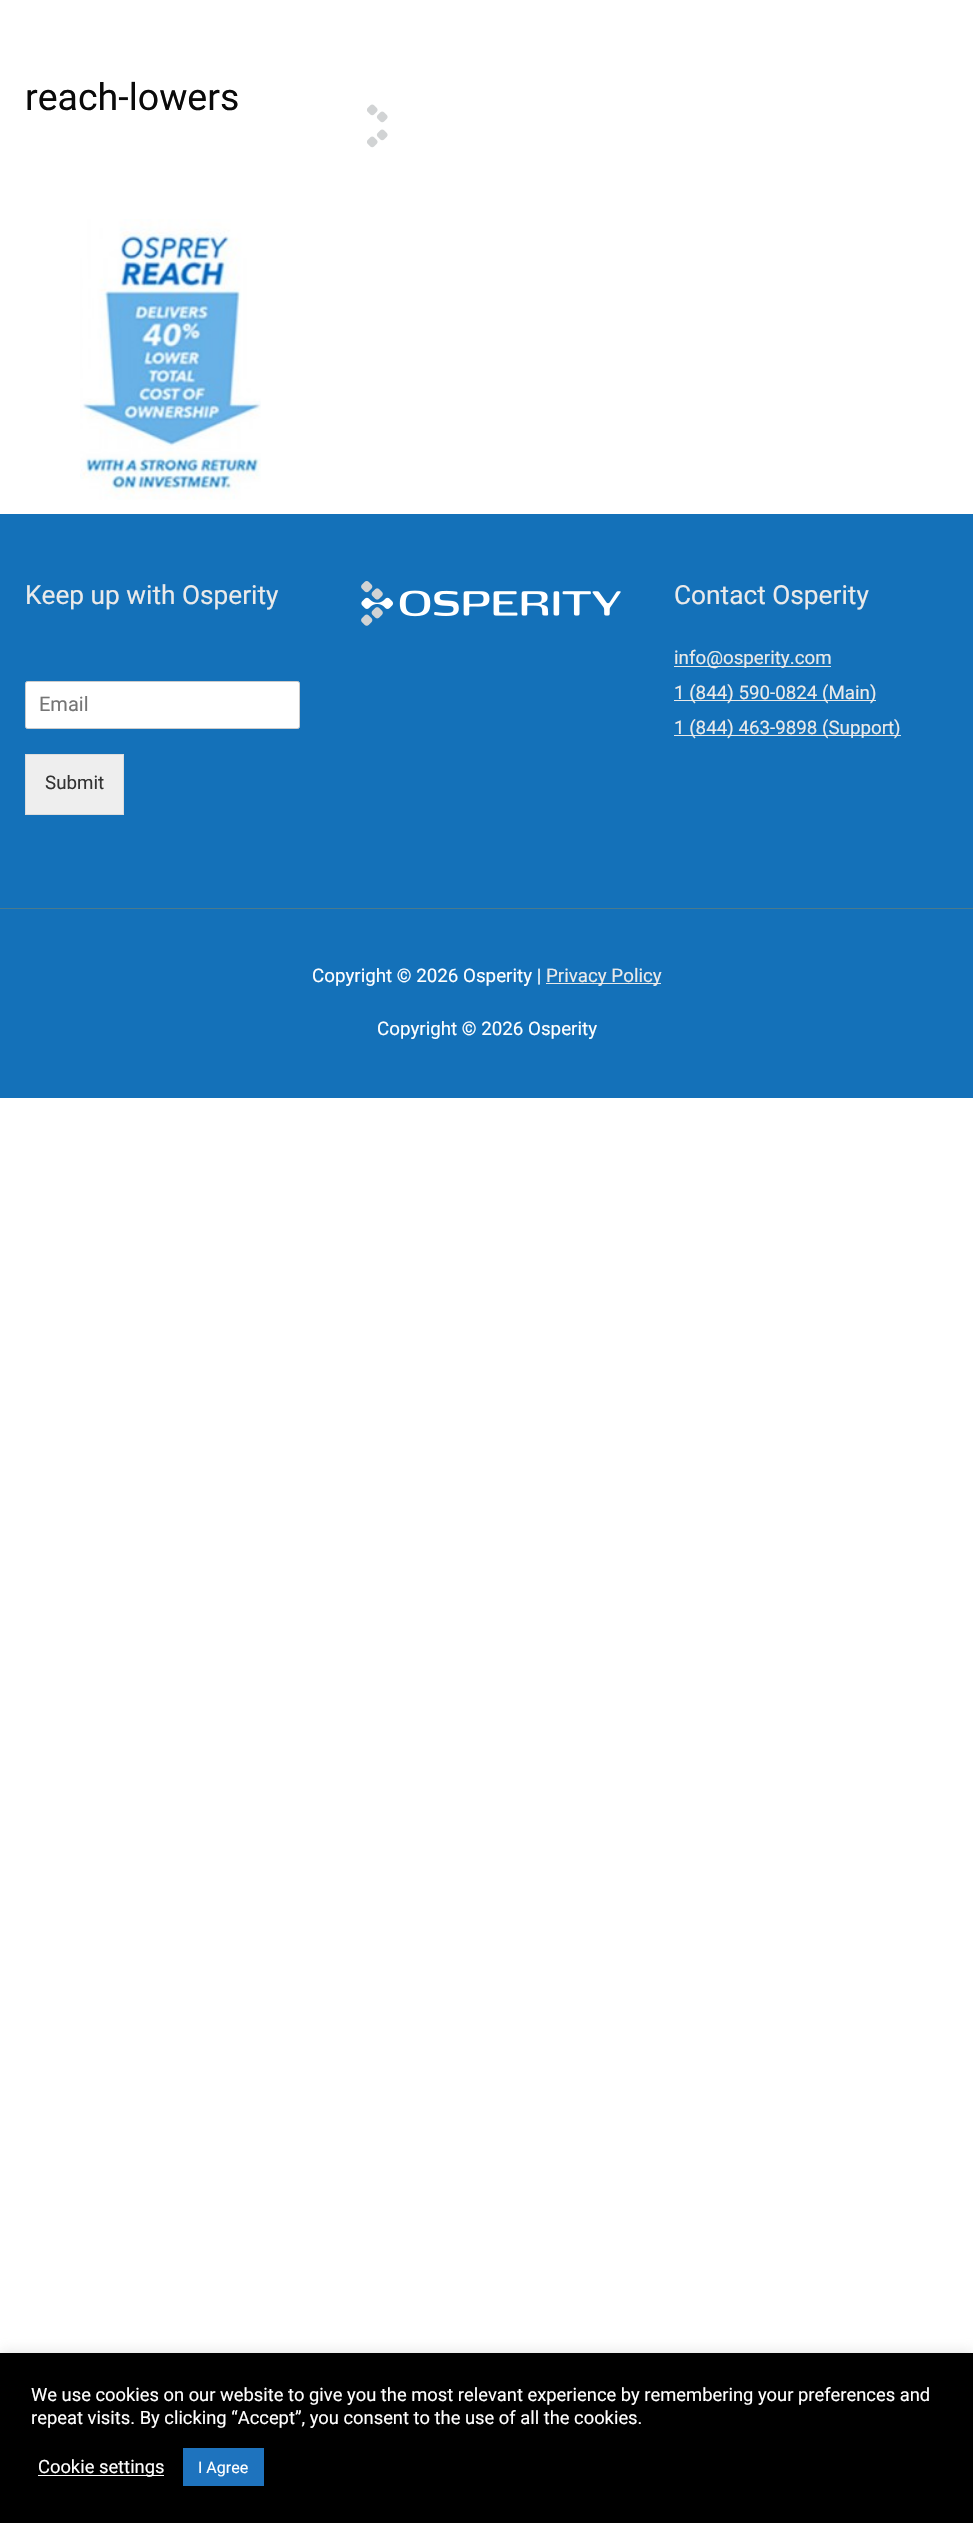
void draw(SkCanvas* c) {
SkPaint p;
p.setAntiAlias(true);
auto F=[&](const char* family, int weight, float size, bool italic = false){SkFontStyle style(weight, SkFontStyle::kNormal_Width,italic ? SkFontStyle::kItalic_Slant : SkFontStyle::kUpright_Slant);SkFont result(fontMgr->matchFamilyStyle(family, style), size);result.setSubpixel(true);return result;};
auto T=[&](const char* s, float x, float y, const SkFont& font){c->drawString(s, x, y, font, p);};
auto R=[&](float x, float y, float w, float h){c->drawRect(SkRect::MakeXYWH(x, y, w, h), p);};
auto I=[&](const char* path, float x, float y, float w, float h){auto image = SkImages::DeferredFromEncodedData(SkData::MakeFromFileName(path));c->drawImageRect(image, SkRect::MakeXYWH(x, y, w, h), SkSamplingOptions());};
c->clear(0xffffffff);
auto f1 = F("Roboto",400,37.5);
p.setColor(0xff0a0a0a);
T("reach-lowers",25,110,f1);
I("1.png",80,219,181,281);
I("2.png",367,104,21,44);
p.setColor(0xff1471b9);
R(0,514,973,394);
auto f2 = F("Roboto",400,26.25);
p.setColor(0xffeaeaea);
T("Keep up with Osperity",25,604,f2);
p.setColor(0xffffffff);
c->drawRoundRect(SkRect::MakeXYWH(25.5,681.5,274,47),2,2,p);
p.setStroke(true);
p.setStrokeWidth(1);
p.setColor(0xffcccccc);
c->drawRoundRect(SkRect::MakeXYWH(25.5,681.5,274,47),2,2,p);
auto f3 = F("Roboto",400,20);
p.setStroke(false);
p.setColor(0xff757575);
T("Email",39,711,f3);
p.setColor(0xffeeeeee);
c->drawRect(SkRect::MakeXYWH(25.5,754.5,98,60),p);
p.setStroke(true);
p.setColor(0xffdddddd);
c->drawRect(SkRect::MakeXYWH(25.5,754.5,98,60),p);
auto f4 = F("Roboto",400,18.75);
p.setStroke(false);
p.setColor(0xff333333);
T("Submit",45,789,f4);
I("3.png",361,581,260,45);
p.setColor(0xffeaeaea);
T("Contact Osperity",674,604,f2);
R(674,666,157,1);
T("info@osperity.com",674,664,f4);
R(674,700,202,1);
T("1 (844) 590-0824 (Main)",674,699,f4);
R(674,735,227,1);
T("1 (844) 463-9898 (Support)",674,734,f4);
p.setColor(0xff4a7a8c);
R(0,908,973,1);
p.setColor(0xff1471b9);
R(0,909,973,189);
p.setColor(0xffffffff);
T("Copyright © 2026 Osperity |",312,982,f4);
p.setColor(0xffeaeaea);
R(546,983,115,1);
T("Privacy Policy",546,982,f4);
p.setColor(0xffffffff);
T("Copyright © 2026 Osperity",377,1035,f4);
p.setColor(0x4dacabab);
p.setMaskFilter(SkMaskFilter::MakeBlur(kNormal_SkBlurStyle, 6));
c->drawRect(SkRect::MakeXYWH(0,2351,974,172),p);
p.setMaskFilter(nullptr);
p.setColor(0xff000000);
R(0,2353,973,170);
auto f5 = F("Roboto",400,18.35);
p.setColor(0xffffffff);
T("We use cookies on our website to give you the most relevant experience by remembering your preferences and",31,2401,f5);
T("repeat visits. By clicking “Accept”, you consent to the use of all the cookies.",31,2424,f5);
R(38,2475,126,1);
T("Cookie settings",38,2473,f5);
p.setColor(0xff1e73be);
R(183,2448,81,38);
auto f6 = F("Roboto",400,16);
p.setColor(0xffffffff);
T("I Agree",198,2473,f6);
}
